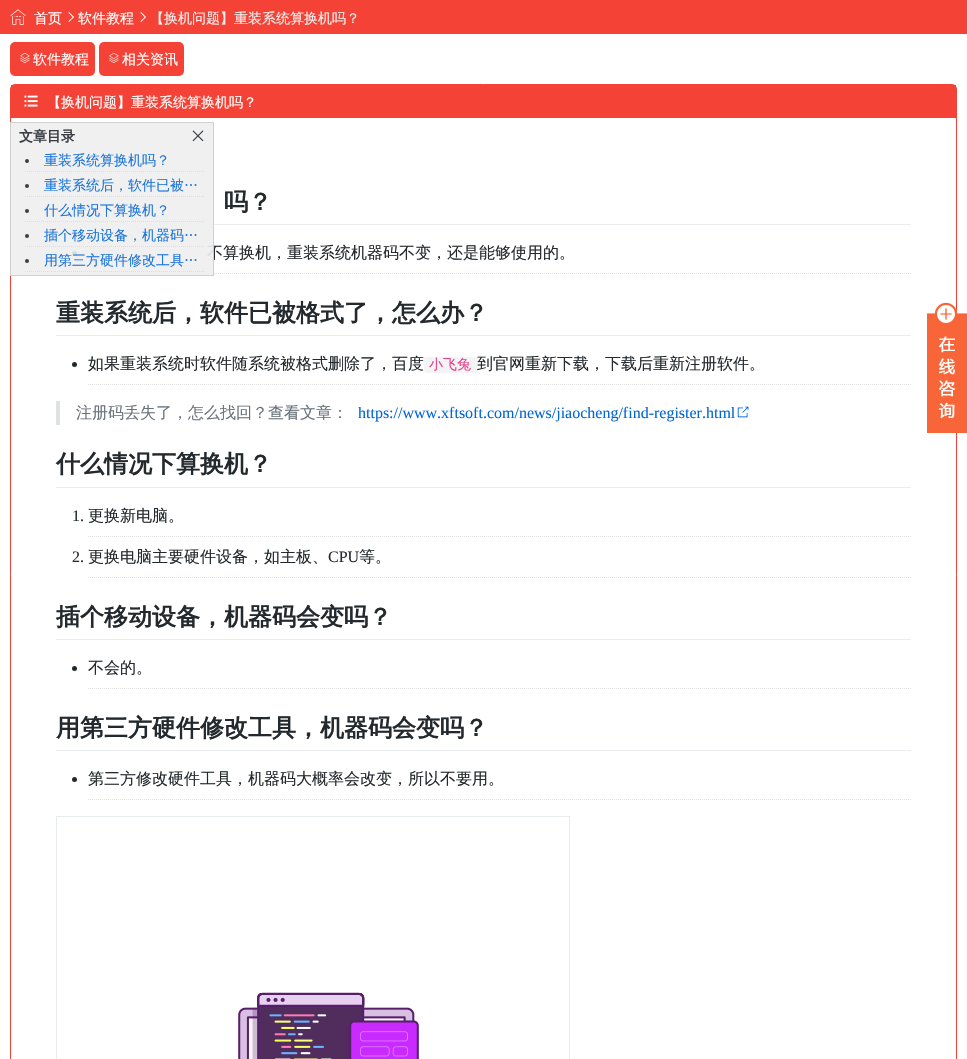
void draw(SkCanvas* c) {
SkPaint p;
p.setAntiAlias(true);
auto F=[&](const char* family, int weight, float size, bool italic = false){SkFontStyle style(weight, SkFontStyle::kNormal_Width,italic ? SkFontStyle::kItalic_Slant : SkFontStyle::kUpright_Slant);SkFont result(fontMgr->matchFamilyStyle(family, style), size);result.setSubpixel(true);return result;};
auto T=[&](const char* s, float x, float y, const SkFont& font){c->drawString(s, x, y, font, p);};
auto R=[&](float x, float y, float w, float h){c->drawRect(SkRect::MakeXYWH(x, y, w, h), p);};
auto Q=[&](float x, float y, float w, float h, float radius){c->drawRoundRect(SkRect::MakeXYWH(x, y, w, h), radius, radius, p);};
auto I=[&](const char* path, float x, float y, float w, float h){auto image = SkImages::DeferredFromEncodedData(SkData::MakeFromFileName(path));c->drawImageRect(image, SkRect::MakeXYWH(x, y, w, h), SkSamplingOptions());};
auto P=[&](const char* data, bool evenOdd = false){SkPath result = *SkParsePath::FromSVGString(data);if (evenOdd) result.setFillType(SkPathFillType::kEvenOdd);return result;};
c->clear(0xffffffff);
p.setColor(0xfff44336);
R(0,0,967,34);
I("1.png",10,9,16,16);
auto f1 = F("WenQuanYi Zen Hei",500,14);
p.setColor(0xffffffff);
T("首页",34,23,f1);
I("2.png",68,12,6,10);
T("软件教程",78,23,f1);
I("2.png",140,12,6,10);
p.setColor(0xffeeeeee);
T("【换机问题】重装系统算换机吗？",150,23,f1);
p.setColor(0xfff44336);
Q(10,42,85,34,5);
I("3.png",20,52,10,11);
p.setColor(0xffffffff);
T("软件教程",33,64,f1);
p.setColor(0xfff44336);
Q(99,42,85,34,5);
I("3.png",109,52,10,11);
p.setColor(0xffffffff);
T("相关资讯",122,64,f1);
p.setStroke(true);
p.setStrokeWidth(1);
p.setColor(0xfff44336);
c->drawRoundRect(SkRect::MakeXYWH(10.5,84.5,946,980),4.5,4.5,p);
p.setStroke(false);
R(11,85,945,33);
I("4.png",24,95,14,12);
p.setColor(0xffffffff);
T("【换机问题】重装系统算换机吗？",47,107,f1);
p.setColor(0xffeaecef);
R(56,224,855,1);
p.setStroke(true);
p.setColor(0xffe0e0e0);
p.setPathEffect(SkDashPathEffect::Make({{1,1}}, 0));
c->drawPath(P("M88 273.5h823"),p);
p.setPathEffect(nullptr);
p.setStroke(false);
p.setColor(0xff24292e);
c->drawCircle(74.5,253.5,2.5,p);
p.setColor(0xfff4f4f4);
Q(88,246,39,16,3);
auto f2 = F("WenQuanYi Zen Hei",500,16);
p.setColor(0xff24292e);
T("不算换机，重装系统机器码不变，还是能够使用的。",207,258,f2);
p.setColor(0xe6eeeeee);
R(10,122,204,154);
p.setStroke(true);
p.setColor(0xe6cccccc);
c->drawRect(SkRect::MakeXYWH(10.5,122.5,203,153),p);
auto f3 = F("WenQuanYi Zen Hei",700,14);
p.setStroke(false);
p.setColor(0xff3a3e43);
T("文章目录",19,141,f3);
I("5.png",192,130,12,12);
p.setStroke(true);
p.setColor(0xffdddddd);
p.setPathEffect(SkDashPathEffect::Make({{1,1}}, 0));
c->drawPath(P("M25 171.5h180"),p);
p.setPathEffect(nullptr);
p.setStroke(false);
p.setColor(0xff3a3e43);
c->drawCircle(27,161,2,p);
p.setColor(0xff1c75da);
T("重装系统算换机吗？",44,165,f1);
p.setStroke(true);
p.setColor(0x8acccccc);
p.setPathEffect(SkDashPathEffect::Make({{1,1}}, 0));
c->drawPath(P("M25 196.5h180"),p);
p.setPathEffect(nullptr);
p.setStroke(false);
p.setColor(0xff3a3e43);
c->drawCircle(27,186,2,p);
p.setColor(0xff1c75da);
T("重装系统后，软件已被…",44,190,f1);
p.setStroke(true);
p.setColor(0xffdddddd);
p.setPathEffect(SkDashPathEffect::Make({{1,1}}, 0));
c->drawPath(P("M25 221.5h180"),p);
p.setPathEffect(nullptr);
p.setStroke(false);
p.setColor(0xff3a3e43);
c->drawCircle(27,211,2,p);
p.setColor(0xff1c75da);
T("什么情况下算换机？",44,215,f1);
p.setStroke(true);
p.setColor(0x8acccccc);
p.setPathEffect(SkDashPathEffect::Make({{1,1}}, 0));
c->drawPath(P("M25 246.5h180"),p);
p.setPathEffect(nullptr);
p.setStroke(false);
p.setColor(0xff3a3e43);
c->drawCircle(27,236,2,p);
p.setColor(0xff1c75da);
T("插个移动设备，机器码…",44,240,f1);
p.setStroke(true);
p.setColor(0xffdddddd);
p.setPathEffect(SkDashPathEffect::Make({{1,1}}, 0));
c->drawPath(P("M25 271.5h180"),p);
p.setPathEffect(nullptr);
p.setStroke(false);
p.setColor(0xff3a3e43);
c->drawCircle(27,261,2,p);
p.setColor(0xff1c75da);
T("用第三方硬件修改工具…",44,265,f1);
auto f4 = F("WenQuanYi Zen Hei",700,24);
p.setColor(0xff24292e);
T("吗？",224,210,f4);
p.setColor(0xffeaecef);
R(56,335,855,1);
p.setColor(0xff24292e);
T("重装系统后，软件已被格式了，怎么办？",56,321,f4);
p.setStroke(true);
p.setColor(0xffe0e0e0);
p.setPathEffect(SkDashPathEffect::Make({{1,1}}, 0));
c->drawPath(P("M88 384.5h823"),p);
p.setPathEffect(nullptr);
p.setStroke(false);
p.setColor(0xff24292e);
c->drawCircle(74.5,364.5,2.5,p);
T("如果重装系统时软件随系统被格式删除了，百度",88,369,f2);
p.setColor(0xfff4f4f4);
Q(424,357,53,16,3);
p.setColor(0xffe83e8c);
T("小飞兔",429,369,f1);
p.setColor(0xff24292e);
T("到官网重新下载，下载后重新注册软件。",477,369,f2);
p.setColor(0xffdfe2e5);
R(56,401,4,24);
p.setColor(0xff6a737d);
T("注册码丢失了，怎么找回？查看文章：",76,418,f2);
auto f5 = F("Liberation Serif",400,16);
p.setColor(0xff0366d6);
T("https://www.xftsoft.com/news/jiaocheng/find-register.html",358,418,f5);
I("6.png",737,406,12,12);
p.setColor(0xffeaecef);
R(56,487,855,1);
p.setColor(0xff24292e);
T("什么情况下算换机？",56,472,f4);
p.setStroke(true);
p.setColor(0xffe0e0e0);
p.setPathEffect(SkDashPathEffect::Make({{1,1}}, 0));
c->drawPath(P("M88 536.5h823"),p);
p.setPathEffect(nullptr);
p.setStroke(false);
p.setColor(0xff24292e);
T("1.",72,521,f5);
T("更换新电脑。",88,521,f2);
p.setStroke(true);
p.setColor(0xffe0e0e0);
p.setPathEffect(SkDashPathEffect::Make({{1,1}}, 0));
c->drawPath(P("M88 577.5h823"),p);
p.setPathEffect(nullptr);
p.setStroke(false);
p.setColor(0xff24292e);
T("2.",72,562,f5);
T("更换电脑主要硬件设备，如主板、",88,562,f2);
T("CPU",328,562,f5);
T("等。",359,562,f2);
p.setColor(0xffeaecef);
R(56,639,855,1);
p.setColor(0xff24292e);
T("插个移动设备，机器码会变吗？",56,625,f4);
p.setStroke(true);
p.setColor(0xffe0e0e0);
p.setPathEffect(SkDashPathEffect::Make({{1,1}}, 0));
c->drawPath(P("M88 688.5h823"),p);
p.setPathEffect(nullptr);
p.setStroke(false);
p.setColor(0xff24292e);
c->drawCircle(74.5,668.5,2.5,p);
T("不会的。",88,673,f2);
p.setColor(0xffeaecef);
R(56,750,855,1);
p.setColor(0xff24292e);
T("用第三方硬件修改工具，机器码会变吗？",56,736,f4);
p.setStroke(true);
p.setColor(0xffe0e0e0);
p.setPathEffect(SkDashPathEffect::Make({{1,1}}, 0));
c->drawPath(P("M88 799.5h823"),p);
p.setPathEffect(nullptr);
p.setStroke(false);
p.setColor(0xff24292e);
c->drawCircle(74.5,779.5,2.5,p);
T("第三方修改硬件工具，机器码大概率会改变，所以不要用。",88,784,f2);
p.setStroke(true);
p.setColor(0xffe9ecef);
c->drawRect(SkRect::MakeXYWH(56.5,816.5,513,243),p);
I("7.png",238,992,181,67);
I("8.png",927,302,40,131);
}
